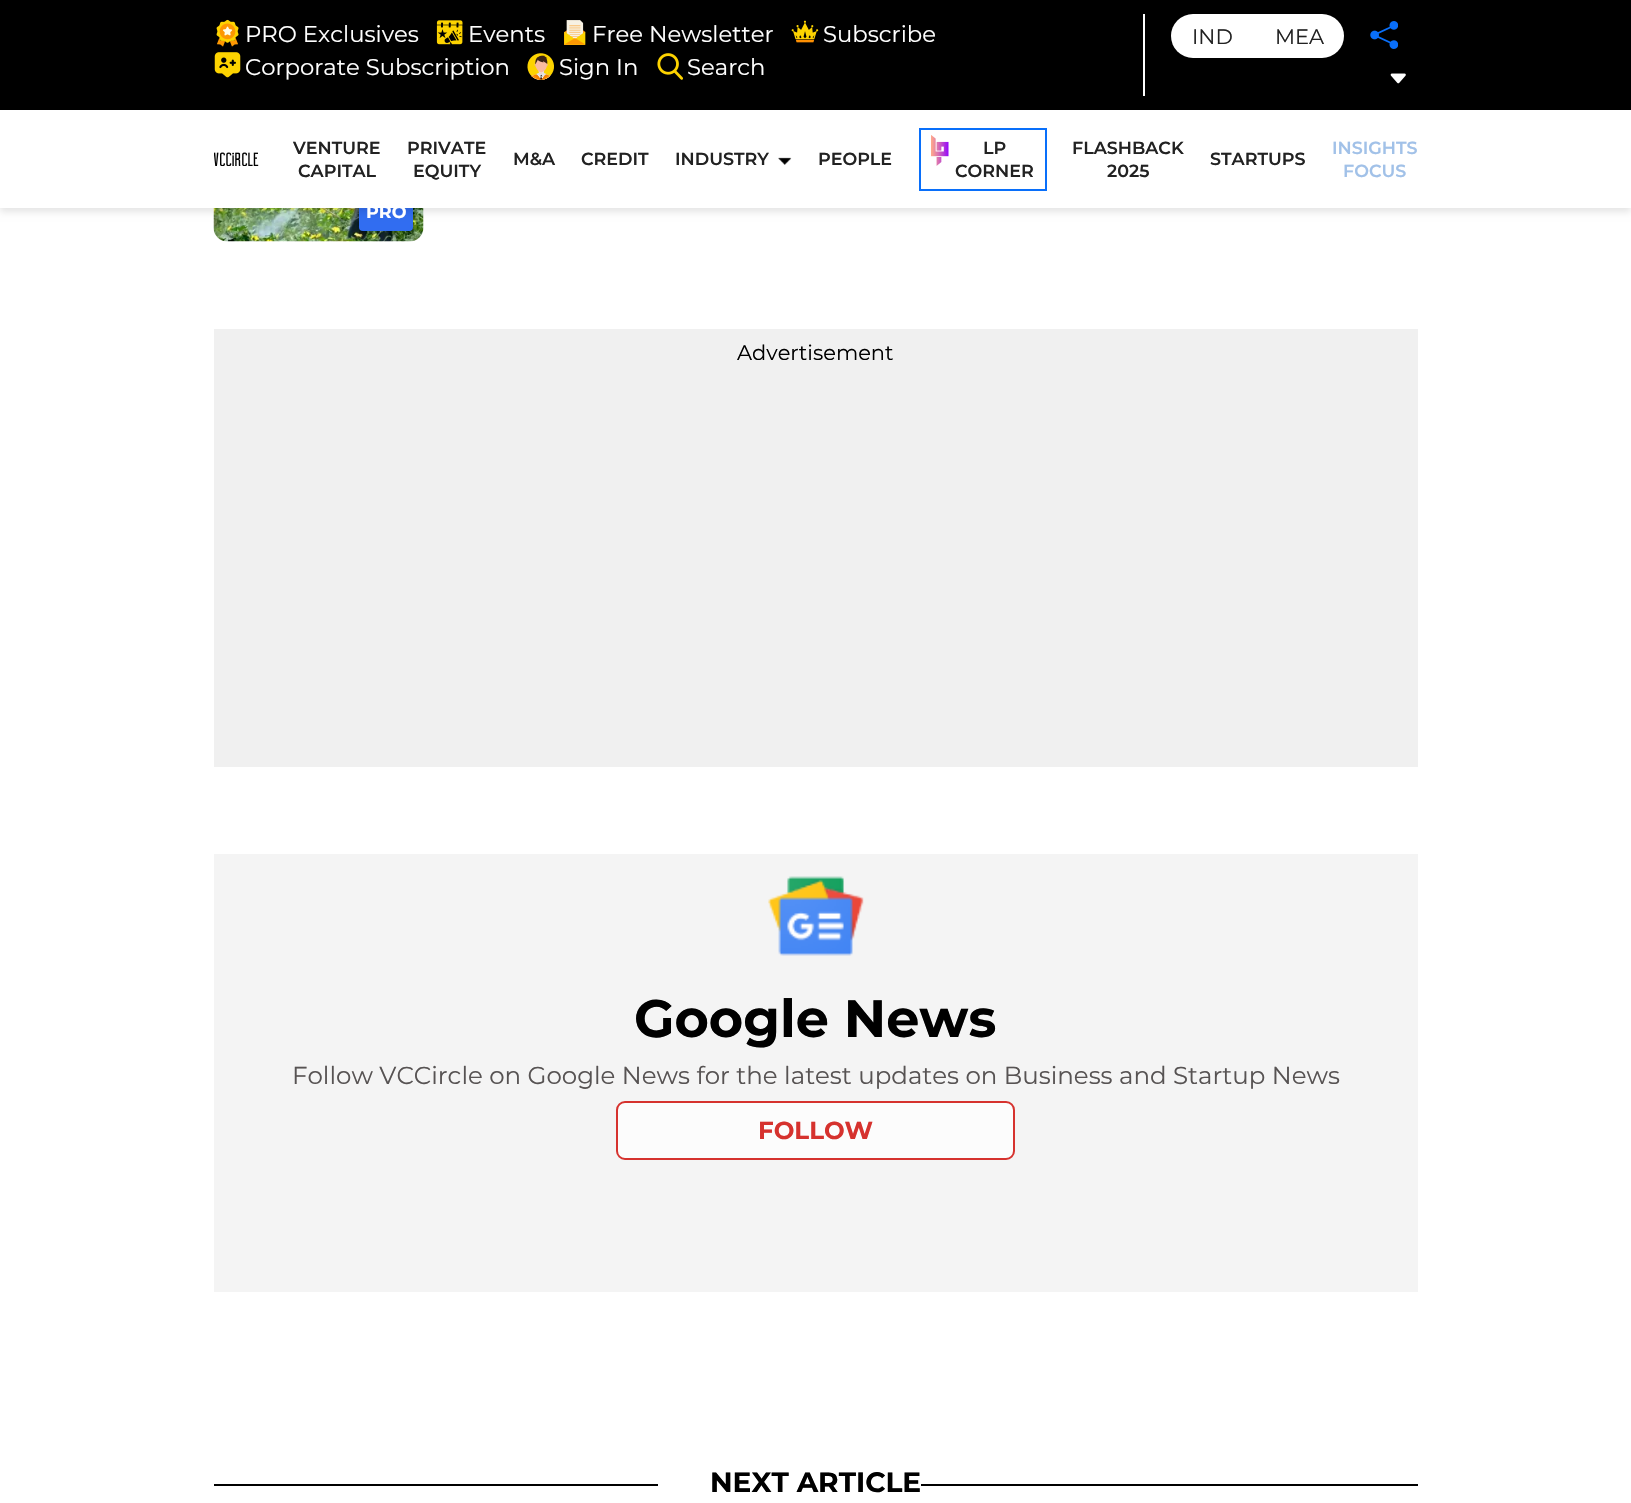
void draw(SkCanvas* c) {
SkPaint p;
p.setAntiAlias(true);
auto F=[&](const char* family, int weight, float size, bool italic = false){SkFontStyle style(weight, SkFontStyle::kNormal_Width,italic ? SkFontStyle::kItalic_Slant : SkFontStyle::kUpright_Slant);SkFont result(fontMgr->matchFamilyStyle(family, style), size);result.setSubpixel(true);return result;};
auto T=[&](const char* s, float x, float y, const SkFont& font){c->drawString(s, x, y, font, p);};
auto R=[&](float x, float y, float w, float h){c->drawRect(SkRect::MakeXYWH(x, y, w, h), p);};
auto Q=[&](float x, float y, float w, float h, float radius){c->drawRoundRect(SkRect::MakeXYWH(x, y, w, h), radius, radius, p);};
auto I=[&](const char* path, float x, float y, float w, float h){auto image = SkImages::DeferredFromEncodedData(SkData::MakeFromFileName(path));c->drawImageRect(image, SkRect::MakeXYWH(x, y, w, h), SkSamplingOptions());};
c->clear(0xffffffff);
I("13.png",213,208,211,34);
p.setColor(0xff316df1);
Q(359,194,54,37,4);
p.setColor(0x1a000000);
p.setMaskFilter(SkMaskFilter::MakeBlur(kNormal_SkBlurStyle, 3.5));
c->drawRect(SkRect::MakeXYWH(0,4,1631,208),p);
p.setMaskFilter(nullptr);
p.setColor(0xffffffff);
R(0,110,1631,98);
p.setColor(0xff000000);
R(0,0,1631,110);
p.setColor(0xffffffff);
R(1143,14,2,82);
I("1.png",216,19,23,28);
auto f1 = F("Montserrat",400,22.75);
T("PRO Exclusives",245,42,f1);
I("2.png",436,20,27,25);
T("Events",468,42,f1);
I("3.png",564,20,22,25);
T("Free Newsletter",592,42,f1);
I("4.png",791,20,28,23);
T("Subscribe",823,42,f1);
I("5.png",214,52,27,26);
T("Corporate Subscription",245,75,f1);
I("6.png",527,53,27,27);
T("Sign In",559,75,f1);
I("7.png",657,53,26,27);
T("Search",687,75,f1);
Q(1171,14,173,44,22);
auto f2 = F("Montserrat",400,21);
p.setColor(0xff222222);
T("IND",1192,44,f2);
T("MEA",1275,44,f2);
I("8.png",1370,21,28,28);
I("9.png",1390,73,16,11);
I("10.png",214,152,45,14);
auto f3 = F("Montserrat",600,17.5);
T("VENTURE",293,154,f3);
T("CAPITAL",298,177,f3);
T("PRIVATE",407,154,f3);
T("EQUITY",413,177,f3);
T("M&A",513,165,f3);
T("CREDIT",581,165,f3);
T("INDUSTRY",675,165,f3);
I("11.png",778,157,14,8);
T("PEOPLE",818,165,f3);
I("12.png",931,135,18,31);
p.setStroke(true);
p.setStrokeWidth(2);
p.setColor(0xff096ffa);
c->drawRect(SkRect::MakeXYWH(920,129,126,61),p);
p.setStroke(false);
p.setColor(0xff222222);
T("LP",983,154,f3);
T("CORNER",955,177,f3);
T("FLASHBACK",1072,154,f3);
T("2025",1107,177,f3);
T("STARTUPS",1210,165,f3);
p.setColor(0xffa1c1e8);
T("INSIGHTS",1332,154,f3);
T("FOCUS",1343,177,f3);
auto f4 = F("Montserrat",700,17.5);
p.setColor(0xffffffff);
T("PRO",366,218,f4);
p.setColor(0xfff0f0f0);
R(214,329,1204,438);
p.setColor(0xff000000);
T("Advertisement",737,360,f2);
p.setColor(0xfff4f4f4);
R(214,854,1204,438);
I("14.png",768,876,96,80);
auto f5 = F("Montserrat",700,52.5);
p.setColor(0xff000000);
T("Google News",634,1037,f5);
auto f6 = F("Montserrat",400,24.5);
p.setColor(0xff575353);
T("Follow VCCircle on Google News for the latest updates on Business and Startup News",292,1084,f6);
p.setColor(0xfffcfcfc);
c->drawRoundRect(SkRect::MakeXYWH(617,1102,397,57),8,8,p);
p.setStroke(true);
p.setColor(0xffd6322e);
c->drawRoundRect(SkRect::MakeXYWH(617,1102,397,57),8,8,p);
auto f7 = F("Montserrat",700,24.5);
p.setStroke(false);
T("FOLLOW",758,1139,f7);
p.setColor(0xff000000);
R(214,1484,1204,2);
p.setColor(0xffffffff);
R(658,1484,263,2);
auto f8 = F("Montserrat",700,28);
p.setColor(0xff000000);
T("NEXT ARTICLE",710,1492,f8);
}
